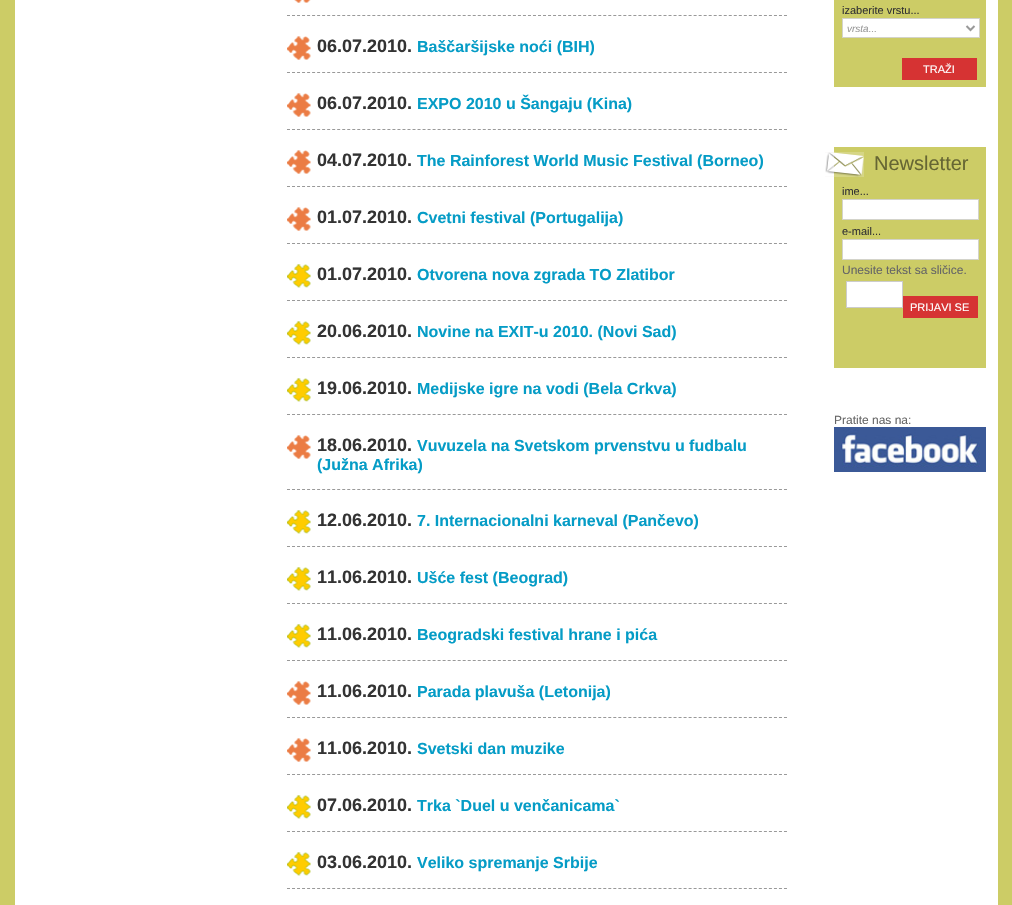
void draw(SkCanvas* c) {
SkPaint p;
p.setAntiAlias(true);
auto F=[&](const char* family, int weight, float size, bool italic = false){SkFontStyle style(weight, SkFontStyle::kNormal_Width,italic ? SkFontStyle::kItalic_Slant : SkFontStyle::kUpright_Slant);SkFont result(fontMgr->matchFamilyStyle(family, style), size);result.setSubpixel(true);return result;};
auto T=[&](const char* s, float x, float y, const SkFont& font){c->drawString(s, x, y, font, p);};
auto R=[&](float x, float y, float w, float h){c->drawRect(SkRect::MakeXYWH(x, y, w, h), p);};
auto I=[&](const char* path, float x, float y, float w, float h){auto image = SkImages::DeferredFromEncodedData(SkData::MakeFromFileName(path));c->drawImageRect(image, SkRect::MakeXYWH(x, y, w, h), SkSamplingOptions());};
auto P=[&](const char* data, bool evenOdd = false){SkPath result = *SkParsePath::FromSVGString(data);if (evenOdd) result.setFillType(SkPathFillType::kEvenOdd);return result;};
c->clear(0xffcccc66);
p.setColor(0xffffffff);
R(15,0,983,905);
I("1.png",294,0,17,3);
p.setStroke(true);
p.setStrokeWidth(1);
p.setColor(0xff999999);
p.setPathEffect(SkDashPathEffect::Make({{3,2.02f}}, 0));
c->drawPath(P("M287 15.5h500"),p);
p.setPathEffect(nullptr);
I("2.png",287,36,24,24);
p.setPathEffect(SkDashPathEffect::Make({{3,2.02f}}, 0));
c->drawPath(P("M287 72.5h500"),p);
p.setPathEffect(nullptr);
auto f1 = F("Liberation Sans",700,18);
p.setStroke(false);
p.setColor(0xff333333);
T("06.07.2010.",317,52,f1);
auto f2 = F("Liberation Sans",700,16);
p.setColor(0xff059cc6);
T("Baščaršijske noći (BIH)",417,52,f2);
I("2.png",287,93,24,24);
p.setStroke(true);
p.setColor(0xff999999);
p.setPathEffect(SkDashPathEffect::Make({{3,2.02f}}, 0));
c->drawPath(P("M287 129.5h500"),p);
p.setPathEffect(nullptr);
p.setStroke(false);
p.setColor(0xff333333);
T("06.07.2010.",317,109,f1);
p.setColor(0xff059cc6);
T("EXPO 2010 u Šangaju (Kina)",417,109,f2);
I("2.png",287,150,24,24);
p.setStroke(true);
p.setColor(0xff999999);
p.setPathEffect(SkDashPathEffect::Make({{3,2.02f}}, 0));
c->drawPath(P("M287 186.5h500"),p);
p.setPathEffect(nullptr);
p.setStroke(false);
p.setColor(0xff333333);
T("04.07.2010.",317,166,f1);
p.setColor(0xff059cc6);
T("The Rainforest World Music Festival (Borneo)",417,166,f2);
I("2.png",287,207,24,24);
p.setStroke(true);
p.setColor(0xff999999);
p.setPathEffect(SkDashPathEffect::Make({{3,2.02f}}, 0));
c->drawPath(P("M287 243.5h500"),p);
p.setPathEffect(nullptr);
p.setStroke(false);
p.setColor(0xff333333);
T("01.07.2010.",317,223,f1);
p.setColor(0xff059cc6);
T("Cvetni festival (Portugalija)",417,223,f2);
I("3.png",287,264,24,24);
p.setStroke(true);
p.setColor(0xff999999);
p.setPathEffect(SkDashPathEffect::Make({{3,2.02f}}, 0));
c->drawPath(P("M287 300.5h500"),p);
p.setPathEffect(nullptr);
p.setStroke(false);
p.setColor(0xff333333);
T("01.07.2010.",317,280,f1);
p.setColor(0xff059cc6);
T("Otvorena nova zgrada TO Zlatibor",417,280,f2);
I("3.png",287,321,24,24);
p.setStroke(true);
p.setColor(0xff999999);
p.setPathEffect(SkDashPathEffect::Make({{3,2.02f}}, 0));
c->drawPath(P("M287 357.5h500"),p);
p.setPathEffect(nullptr);
p.setStroke(false);
p.setColor(0xff333333);
T("20.06.2010.",317,337,f1);
p.setColor(0xff059cc6);
T("Novine na EXIT-u 2010. (Novi Sad)",417,337,f2);
I("3.png",287,378,24,24);
p.setStroke(true);
p.setColor(0xff999999);
p.setPathEffect(SkDashPathEffect::Make({{3,2.02f}}, 0));
c->drawPath(P("M287 414.5h500"),p);
p.setPathEffect(nullptr);
p.setStroke(false);
p.setColor(0xff333333);
T("19.06.2010.",317,394,f1);
p.setColor(0xff059cc6);
T("Medijske igre na vodi (Bela Crkva)",417,394,f2);
I("2.png",287,435,24,24);
p.setStroke(true);
p.setColor(0xff999999);
p.setPathEffect(SkDashPathEffect::Make({{3,2.02f}}, 0));
c->drawPath(P("M287 489.5h500"),p);
p.setPathEffect(nullptr);
p.setStroke(false);
p.setColor(0xff333333);
T("18.06.2010.",317,451,f1);
p.setColor(0xff059cc6);
T("Vuvuzela na Svetskom prvenstvu u fudbalu",417,451,f2);
T("(Južna Afrika)",317,470,f2);
I("3.png",287,510,24,24);
p.setStroke(true);
p.setColor(0xff999999);
p.setPathEffect(SkDashPathEffect::Make({{3,2.02f}}, 0));
c->drawPath(P("M287 546.5h500"),p);
p.setPathEffect(nullptr);
p.setStroke(false);
p.setColor(0xff333333);
T("12.06.2010.",317,526,f1);
p.setColor(0xff059cc6);
T("7. Internacionalni karneval (Pančevo)",417,526,f2);
I("3.png",287,567,24,24);
p.setStroke(true);
p.setColor(0xff999999);
p.setPathEffect(SkDashPathEffect::Make({{3,2.02f}}, 0));
c->drawPath(P("M287 603.5h500"),p);
p.setPathEffect(nullptr);
p.setStroke(false);
p.setColor(0xff333333);
T("11.06.2010.",317,583,f1);
p.setColor(0xff059cc6);
T("Ušće fest (Beograd)",417,583,f2);
I("3.png",287,624,24,24);
p.setStroke(true);
p.setColor(0xff999999);
p.setPathEffect(SkDashPathEffect::Make({{3,2.02f}}, 0));
c->drawPath(P("M287 660.5h500"),p);
p.setPathEffect(nullptr);
p.setStroke(false);
p.setColor(0xff333333);
T("11.06.2010.",317,640,f1);
p.setColor(0xff059cc6);
T("Beogradski festival hrane i pića",417,640,f2);
I("2.png",287,681,24,24);
p.setStroke(true);
p.setColor(0xff999999);
p.setPathEffect(SkDashPathEffect::Make({{3,2.02f}}, 0));
c->drawPath(P("M287 717.5h500"),p);
p.setPathEffect(nullptr);
p.setStroke(false);
p.setColor(0xff333333);
T("11.06.2010.",317,697,f1);
p.setColor(0xff059cc6);
T("Parada plavuša (Letonija)",417,697,f2);
I("2.png",287,738,24,24);
p.setStroke(true);
p.setColor(0xff999999);
p.setPathEffect(SkDashPathEffect::Make({{3,2.02f}}, 0));
c->drawPath(P("M287 774.5h500"),p);
p.setPathEffect(nullptr);
p.setStroke(false);
p.setColor(0xff333333);
T("11.06.2010.",317,754,f1);
p.setColor(0xff059cc6);
T("Svetski dan muzike",417,754,f2);
I("3.png",287,795,24,24);
p.setStroke(true);
p.setColor(0xff999999);
p.setPathEffect(SkDashPathEffect::Make({{3,2.02f}}, 0));
c->drawPath(P("M287 831.5h500"),p);
p.setPathEffect(nullptr);
p.setStroke(false);
p.setColor(0xff333333);
T("07.06.2010.",317,811,f1);
p.setColor(0xff059cc6);
T("Trka `Duel u venčanicama`",417,811,f2);
I("3.png",287,852,24,24);
p.setStroke(true);
p.setColor(0xff999999);
p.setPathEffect(SkDashPathEffect::Make({{3,2.02f}}, 0));
c->drawPath(P("M287 888.5h500"),p);
p.setPathEffect(nullptr);
p.setStroke(false);
p.setColor(0xff333333);
T("03.06.2010.",317,868,f1);
p.setColor(0xff059cc6);
T("Veliko spremanje Srbije",417,868,f2);
p.setColor(0xffcccc66);
R(834,0,152,87);
auto f3 = F("Liberation Sans",400,11);
p.setColor(0xff333333);
T("izaberite vrstu...",842,14,f3);
p.setColor(0xffffffff);
c->drawRect(SkRect::MakeXYWH(842.5,18.5,137,19),p);
p.setStroke(true);
p.setColor(0xffd3d3ca);
c->drawRect(SkRect::MakeXYWH(842.5,18.5,137,19),p);
p.setStrokeWidth(2);
p.setColor(0xff999999);
c->drawPath(P("M966.5 26l4 4l4-4"),p);
auto f4 = F("Liberation Sans",400,10,true);
p.setStroke(false);
T("vrsta...",847,32,f4);
p.setColor(0xffd63333);
R(902,58,75,22);
p.setColor(0xffffffff);
T("TRAŽI",923,73,f3);
p.setColor(0xffcccc66);
R(834,147,152,221);
I("4.png",825,152,39,25);
auto f5 = F("Liberation Sans",400,20);
p.setColor(0xff666633);
T("Newsletter",874,170,f5);
p.setColor(0xff333333);
T("ime...",842,195,f3);
p.setColor(0xffffffff);
c->drawRect(SkRect::MakeXYWH(842.5,199.5,136,20),p);
p.setStroke(true);
p.setStrokeWidth(1);
p.setColor(0xffd3d3ca);
c->drawRect(SkRect::MakeXYWH(842.5,199.5,136,20),p);
p.setStroke(false);
p.setColor(0xff333333);
T("e-mail...",842,235,f3);
p.setColor(0xffffffff);
c->drawRect(SkRect::MakeXYWH(842.5,239.5,136,20),p);
p.setStroke(true);
p.setColor(0xffd3d3ca);
c->drawRect(SkRect::MakeXYWH(842.5,239.5,136,20),p);
auto f6 = F("Liberation Sans",400,12);
p.setStroke(false);
p.setColor(0xff666666);
T("Unesite tekst sa sličice.",842,274,f6);
p.setColor(0xffffffff);
c->drawRect(SkRect::MakeXYWH(846.5,281.5,56,26),p);
p.setStroke(true);
p.setColor(0xffcccccc);
c->drawRect(SkRect::MakeXYWH(846.5,281.5,56,26),p);
p.setStroke(false);
p.setColor(0xffd63333);
R(903,296,75,22);
p.setColor(0xffffffff);
T("PRIJAVI SE",910,311,f3);
p.setColor(0xff666666);
T("Pratite nas na:",834,424,f6);
I("5.png",834,427,152,45);
}
